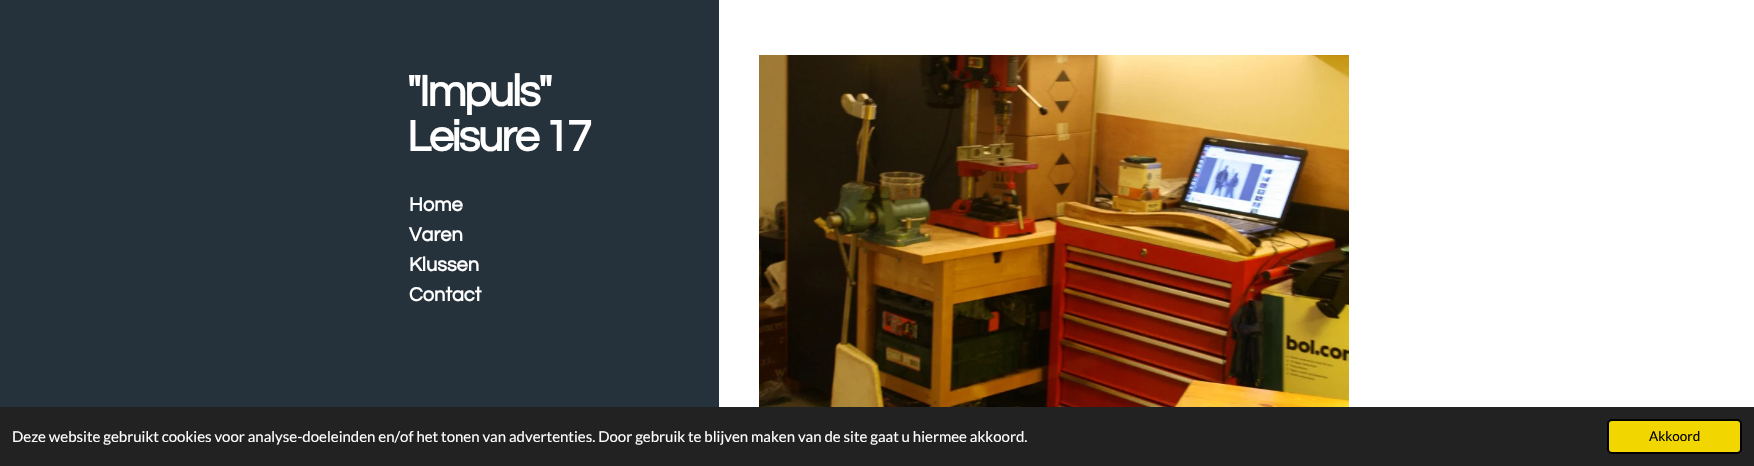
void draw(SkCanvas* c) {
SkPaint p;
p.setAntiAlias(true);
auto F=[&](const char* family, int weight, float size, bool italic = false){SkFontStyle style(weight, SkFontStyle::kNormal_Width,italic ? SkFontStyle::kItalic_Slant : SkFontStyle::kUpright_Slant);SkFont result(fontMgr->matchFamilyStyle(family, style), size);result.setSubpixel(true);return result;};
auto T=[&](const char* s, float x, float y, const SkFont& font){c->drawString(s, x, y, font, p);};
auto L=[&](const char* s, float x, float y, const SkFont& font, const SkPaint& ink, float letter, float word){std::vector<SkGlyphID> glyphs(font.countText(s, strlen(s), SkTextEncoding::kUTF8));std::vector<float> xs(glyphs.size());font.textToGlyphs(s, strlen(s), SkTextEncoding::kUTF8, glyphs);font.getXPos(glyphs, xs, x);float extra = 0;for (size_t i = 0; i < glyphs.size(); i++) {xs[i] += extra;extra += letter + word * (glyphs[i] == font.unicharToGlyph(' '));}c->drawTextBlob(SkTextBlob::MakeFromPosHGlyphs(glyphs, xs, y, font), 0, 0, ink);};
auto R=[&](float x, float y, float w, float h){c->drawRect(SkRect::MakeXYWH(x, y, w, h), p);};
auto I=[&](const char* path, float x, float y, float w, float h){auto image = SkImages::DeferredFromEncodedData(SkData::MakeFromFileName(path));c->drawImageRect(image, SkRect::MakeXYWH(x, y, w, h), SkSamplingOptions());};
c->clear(0xffffffff);
p.setColor(0xff25313b);
R(0,0,719,407);
auto f1 = F("Questrial",700,45);
p.setColor(0xffffffff);
L("''Impuls''",407,106,f1,p,-2.25,0);
L("Leisure 17",407,151,f1,p,-2.25,0);
auto f2 = F("Questrial",700,20);
T("Home",409,211,f2);
T("Varen",409,241,f2);
T("Klussen",409,271,f2);
T("Contact",409,301,f2);
I("1.png",759,55,590,352);
p.setColor(0xff222222);
R(0,407,1754,59);
auto f3 = F("Lato",400,15);
p.setColor(0xffffffff);
T("Deze website gebruikt cookies voor analyse-doeleinden en/of het tonen van advertenties. Door gebruik te blijven maken van de site gaat u hiermee akkoord.",12,442,f3);
p.setColor(0xfff1d600);
c->drawRoundRect(SkRect::MakeXYWH(1608,420,133,33),4,4,p);
p.setStroke(true);
p.setStrokeWidth(2);
p.setColor(0xff000000);
c->drawRoundRect(SkRect::MakeXYWH(1608,420,133,33),4,4,p);
auto f4 = F("Lato",400,13.5);
p.setStroke(false);
T("Akkoord",1649,441,f4);
}
